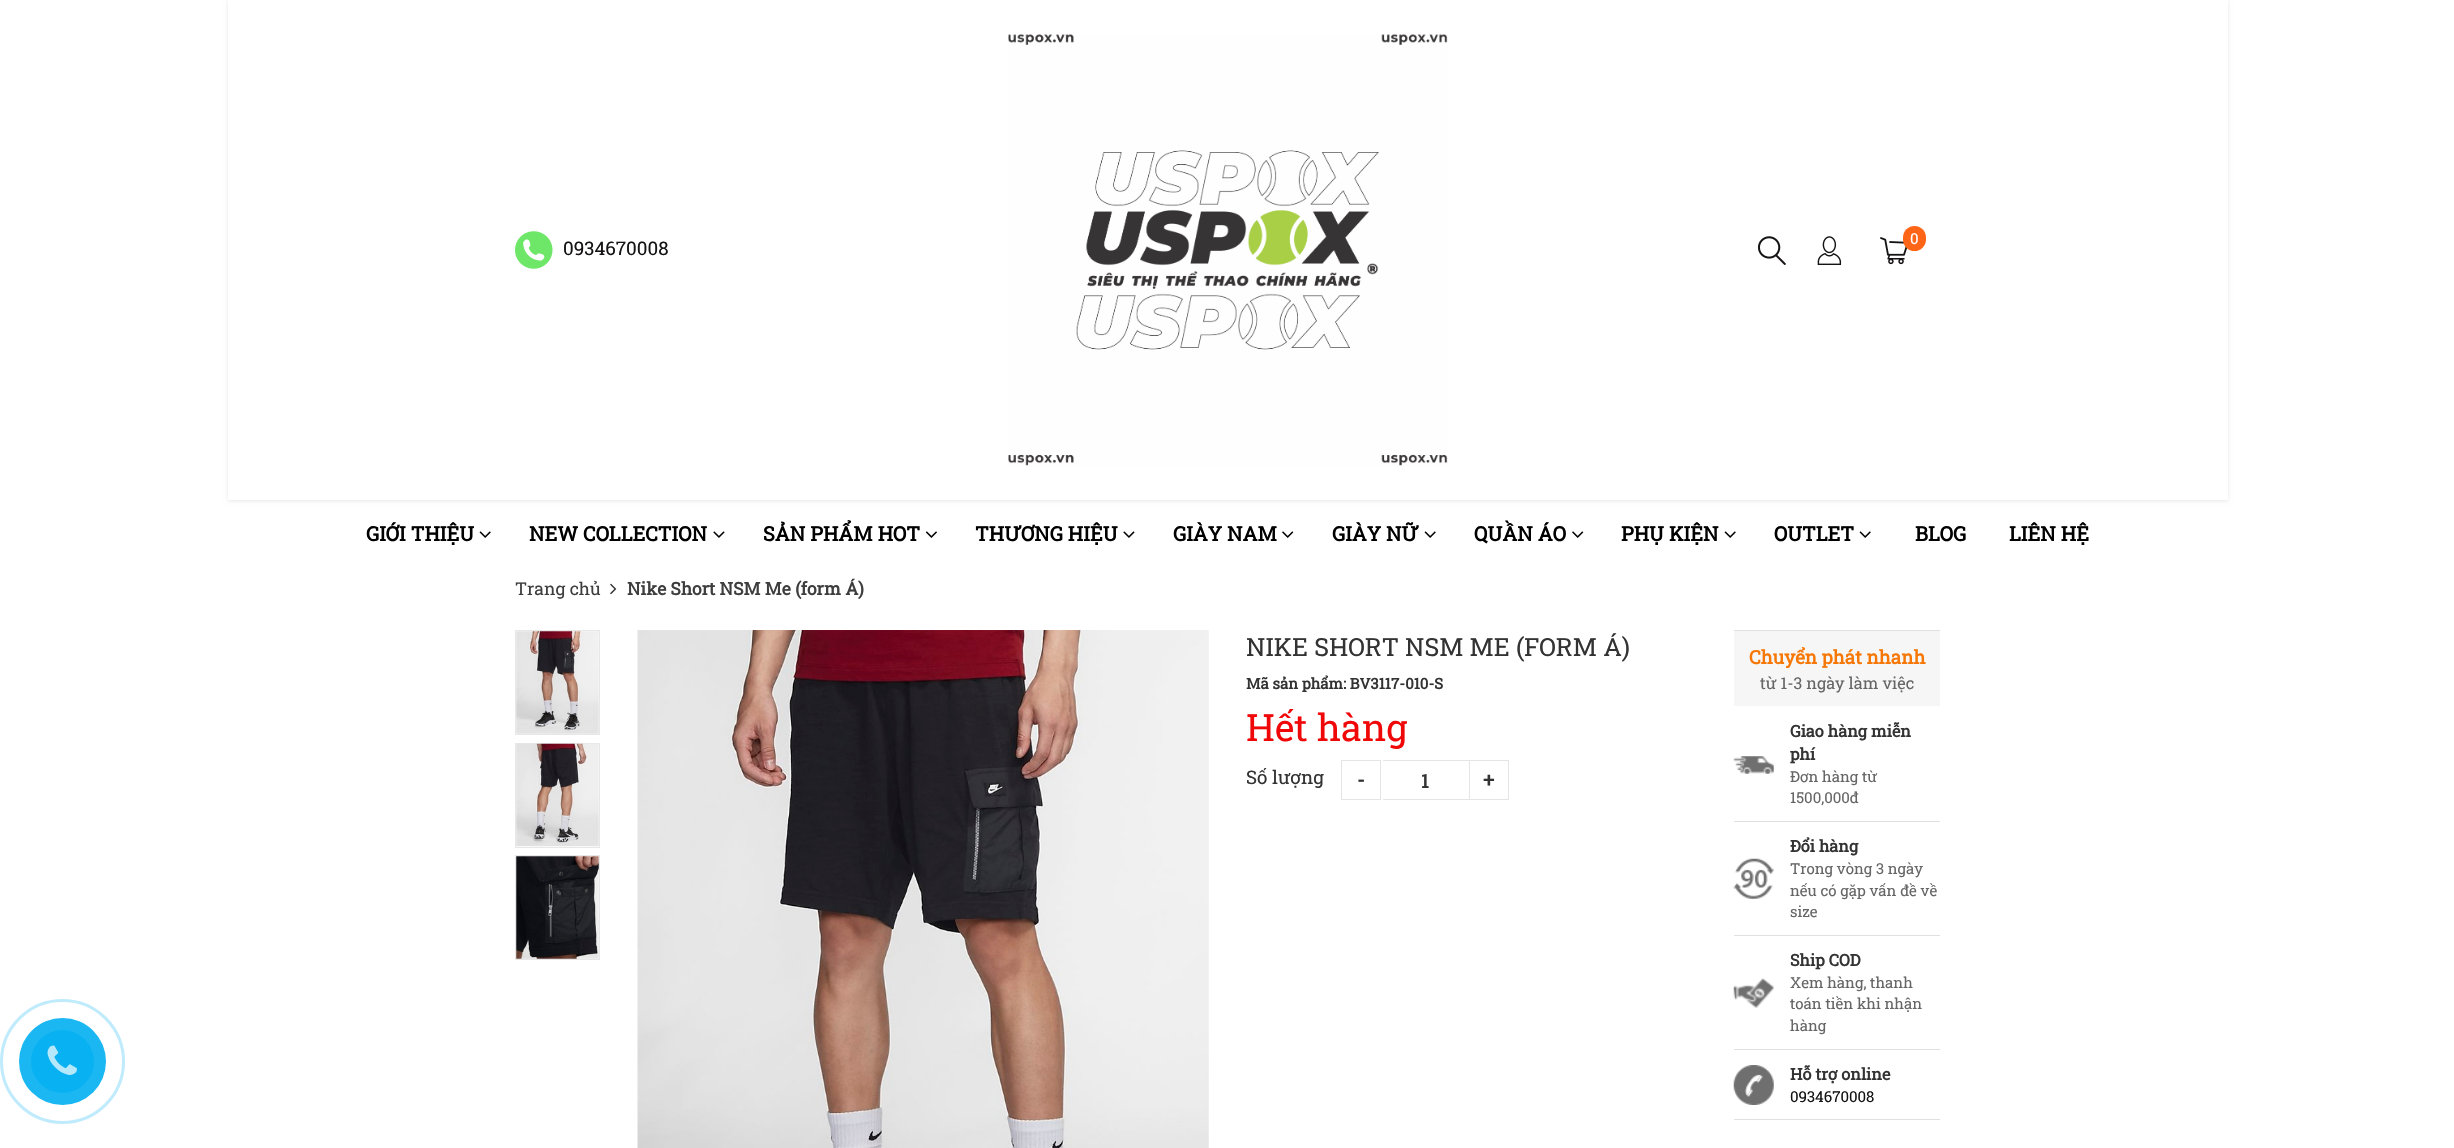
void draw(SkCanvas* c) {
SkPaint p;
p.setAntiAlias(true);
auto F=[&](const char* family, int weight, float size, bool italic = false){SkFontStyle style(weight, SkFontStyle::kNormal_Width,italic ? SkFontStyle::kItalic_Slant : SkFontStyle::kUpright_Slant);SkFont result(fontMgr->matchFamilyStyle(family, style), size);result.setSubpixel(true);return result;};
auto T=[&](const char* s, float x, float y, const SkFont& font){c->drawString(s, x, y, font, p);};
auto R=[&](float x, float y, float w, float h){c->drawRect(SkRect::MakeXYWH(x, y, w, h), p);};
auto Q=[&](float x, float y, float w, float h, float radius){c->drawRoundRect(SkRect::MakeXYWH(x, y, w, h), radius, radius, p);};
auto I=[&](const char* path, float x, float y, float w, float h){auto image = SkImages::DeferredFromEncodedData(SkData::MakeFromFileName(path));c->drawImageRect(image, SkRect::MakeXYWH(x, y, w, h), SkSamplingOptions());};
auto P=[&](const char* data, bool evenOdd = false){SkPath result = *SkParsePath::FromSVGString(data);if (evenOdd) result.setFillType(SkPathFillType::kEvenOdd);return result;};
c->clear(0xffffffff);
c->save();
c->clipPath(P("M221 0h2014v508h-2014zm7 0h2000v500h-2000z",true),true);
p.setColor(0x17000000);
p.setMaskFilter(SkMaskFilter::MakeBlur(kNormal_SkBlurStyle, 2));
c->drawRect(SkRect::MakeXYWH(228,1,2000,500),p);
p.setMaskFilter(nullptr);
c->restore();
I("1.png",1008,34,440,432);
I("2.png",1758,236,28,29);
I("3.png",1817,236,25,29);
I("4.png",1880,237,28,28);
p.setColor(0xffff6517);
Q(1903,226,23,25,11.5);
auto f1 = F("Roboto Slab",400,15);
p.setColor(0xffffffff);
T("0",1910,244,f1);
I("5.png",515,231,38,38);
auto f2 = F("Roboto Slab",400,18.75);
p.setColor(0xff151313);
T("0934670008",563,255,f2);
auto f3 = F("Roboto Slab",700,20);
p.setColor(0xff000000);
T("GIỚI THIỆU",366,541,f3);
I("6.png",479,531,12,7);
T("NEW COLLECTION",529,541,f3);
I("7.png",713,531,12,7);
T("SẢN PHẨM HOT",763,541,f3);
I("8.png",925,531,12,7);
T("THƯƠNG HIỆU",975,541,f3);
I("7.png",1123,531,12,7);
T("GIÀY NAM",1173,541,f3);
I("9.png",1282,531,12,7);
T("GIÀY NỮ",1332,541,f3);
I("6.png",1424,531,12,7);
T("QUẦN ÁO",1474,541,f3);
I("9.png",1572,531,12,7);
T("PHỤ KIỆN",1621,541,f3);
I("6.png",1724,531,12,7);
T("OUTLET",1774,541,f3);
I("6.png",1859,531,12,7);
T("BLOG",1915,541,f3);
T("LIÊN HỆ",2009,541,f3);
p.setStroke(true);
p.setStrokeWidth(3);
p.setColor(0xffbfebfc);
c->drawCircle(62.5,1061.5,61,p);
p.setStroke(false);
p.setColor(0xff1ab7f3);
c->drawCircle(62.5,1061.5,43.5,p);
p.setColor(0xff08b1f2);
c->drawCircle(62.5,1061.5,31.5,p);
I("10.png",47,1045,30,30);
auto f4 = F("Roboto Slab",400,17.5);
p.setColor(0xff3e3e3e);
T("Trang chủ",515,595,f4);
I("11.png",610,583,7,12);
auto f5 = F("Roboto Slab",700,17.5);
T("Nike Short NSM Me (form Á)",627,595,f5);
p.setStroke(true);
p.setStrokeWidth(1);
p.setColor(0xffe7e7e7);
c->drawRect(SkRect::MakeXYWH(515.5,630.5,84,104),p);
I("12.png",516,631,83,103);
c->drawRect(SkRect::MakeXYWH(515.5,743.5,84,104),p);
I("13.png",516,743,83,104);
c->drawRect(SkRect::MakeXYWH(515.5,855.5,84,104),p);
I("14.png",516,856,83,103);
I("15.png",637,630,572,518);
auto f6 = F("Roboto Slab",400,25);
p.setStroke(false);
p.setColor(0xff333333);
T("NIKE SHORT NSM ME (FORM Á)",1246,656,f6);
auto f7 = F("Roboto Slab",700,15);
T("Mã sản phẩm: BV3117-010-S",1246,689,f7);
auto f8 = F("Roboto Slab",400,37.5);
p.setColor(0xfff00808);
T("Hết hàng",1246,741,f8);
p.setColor(0xff333333);
T("Số lượng",1246,784,f2);
p.setStroke(true);
p.setColor(0xffe5e5e5);
c->drawRect(SkRect::MakeXYWH(1341.5,760.5,39,39),p);
p.setStroke(false);
p.setColor(0xff333333);
T("-",1357,787,f3);
p.setColor(0xffe5e5e5);
R(1383,760,86,1);
R(1383,799,86,1);
auto f9 = F("Roboto Slab",700,18.75);
p.setColor(0xff333333);
T("1",1421,788,f9);
p.setStroke(true);
p.setColor(0xffe5e5e5);
c->drawRect(SkRect::MakeXYWH(1469.5,760.5,39,39),p);
p.setStroke(false);
p.setColor(0xff333333);
T("+",1483,787,f3);
p.setColor(0xfff6f6f6);
R(1734,631,206,75);
p.setColor(0xffe0e0e0);
R(1734,630,206,1);
p.setColor(0xfff77705);
T("Chuyển phát nhanh",1749,664,f9);
auto f10 = F("Roboto Slab",400,16.25);
p.setColor(0xff666666);
T("từ 1-3 ngày làm việc",1760,689,f10);
p.setColor(0xffe0e0e0);
R(1734,821,206,1);
I("16.png",1733,756,41,18);
auto f11 = F("Roboto Slab",700,16.25);
p.setColor(0xff333333);
T("Giao hàng miễn",1790,737,f11);
T("phí",1790,760,f11);
p.setColor(0xff666666);
T("Đơn hàng từ",1790,782,f1);
T("1500,000đ",1790,803,f1);
p.setColor(0xffe0e0e0);
R(1734,935,206,1);
I("17.png",1733,858,41,41);
p.setColor(0xff333333);
T("Đổi hàng",1790,852,f11);
p.setColor(0xff666666);
T("Trong vòng 3 ngày",1790,874,f1);
T("nếu có gặp vấn đề về",1790,896,f1);
T("size",1790,917,f1);
p.setColor(0xffe0e0e0);
R(1734,1049,206,1);
I("18.png",1733,978,41,30);
p.setColor(0xff333333);
T("Ship COD",1790,966,f11);
p.setColor(0xff666666);
T("Xem hàng, thanh",1790,988,f1);
T("toán tiền khi nhận",1790,1009,f1);
T("hàng",1790,1031,f1);
p.setColor(0xffe0e0e0);
R(1734,1119,206,1);
I("19.png",1733,1065,41,40);
p.setColor(0xff333333);
T("Hỗ trợ online",1790,1080,f11);
p.setColor(0xff151313);
T("0934670008",1790,1102,f1);
}
